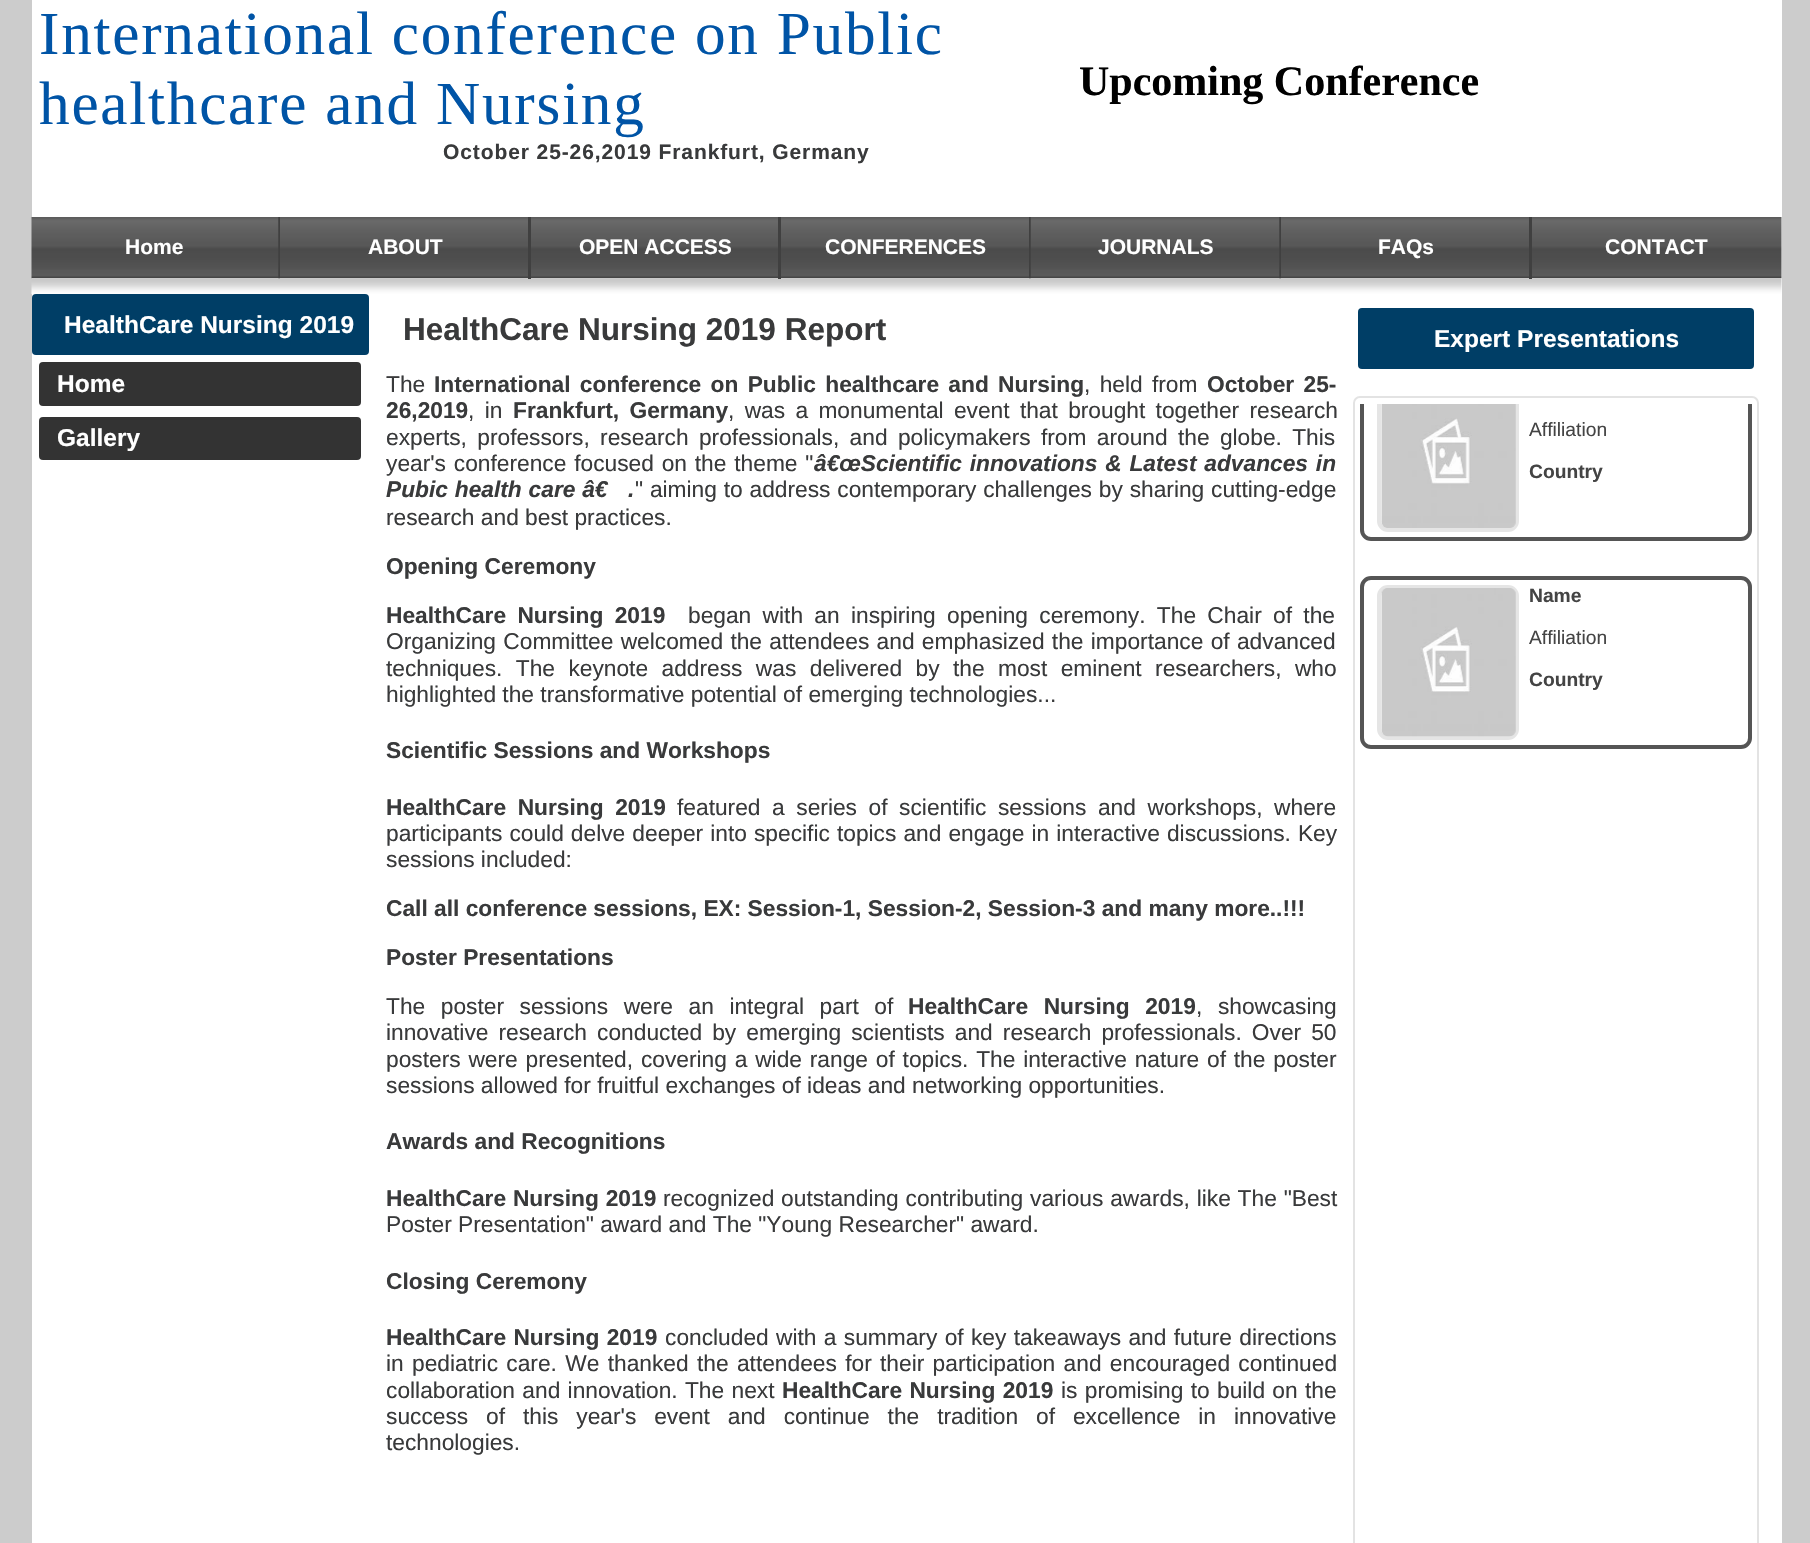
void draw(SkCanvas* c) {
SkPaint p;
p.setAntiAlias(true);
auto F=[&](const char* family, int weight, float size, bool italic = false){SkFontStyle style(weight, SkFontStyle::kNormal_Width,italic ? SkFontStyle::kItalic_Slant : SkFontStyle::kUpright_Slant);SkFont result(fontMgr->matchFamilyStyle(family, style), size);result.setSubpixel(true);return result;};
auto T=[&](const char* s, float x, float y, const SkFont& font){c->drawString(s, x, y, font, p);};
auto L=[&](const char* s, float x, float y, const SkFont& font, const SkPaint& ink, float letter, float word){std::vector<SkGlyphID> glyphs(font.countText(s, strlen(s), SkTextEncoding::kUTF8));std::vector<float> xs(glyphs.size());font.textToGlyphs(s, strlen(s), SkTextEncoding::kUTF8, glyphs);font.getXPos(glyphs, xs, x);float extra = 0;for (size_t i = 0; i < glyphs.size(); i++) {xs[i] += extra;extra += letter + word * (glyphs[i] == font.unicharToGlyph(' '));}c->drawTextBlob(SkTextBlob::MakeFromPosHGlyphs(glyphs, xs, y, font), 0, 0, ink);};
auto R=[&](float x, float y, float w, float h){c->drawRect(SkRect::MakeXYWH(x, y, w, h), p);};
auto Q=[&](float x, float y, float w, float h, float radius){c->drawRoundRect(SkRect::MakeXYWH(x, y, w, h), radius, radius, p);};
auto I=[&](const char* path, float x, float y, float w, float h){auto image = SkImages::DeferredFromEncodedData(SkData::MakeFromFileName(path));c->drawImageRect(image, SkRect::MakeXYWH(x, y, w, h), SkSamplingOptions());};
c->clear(0xffcccccc);
p.setColor(0xffffffff);
R(32,0,1750,1543);
auto f1 = F("Liberation Serif",400,61.25);
p.setColor(0xff0054a6);
L("International conference on Public",39,54,f1,p,1.75,0);
L("healthcare and Nursing",39,124,f1,p,1.75,0);
auto f2 = F("Liberation Sans",700,21);
p.setColor(0xff393a3b);
L("October 25-26,2019 Frankfurt, Germany",443,159,f2,p,.9,0);
auto f3 = F("Liberation Serif",700,42);
p.setColor(0xff000000);
T("Upcoming Conference",1079,95,f3);
I("1.png",31,217,1751,62);
p.setColor(0xffffffff);
T("Home",125,254,f2);
I("4.png",31,278,1751,16);
I("2.png",278,217,2,62);
T("ABOUT",368,254,f2);
p.setColor(0xff404040);
R(528,217,3,62);
p.setColor(0xffffffff);
T("OPEN ACCESS",579,254,f2);
p.setColor(0xff404040);
R(778,217,3,62);
p.setColor(0xffffffff);
T("CONFERENCES",825,254,f2);
I("3.png",1029,217,2,62);
T("JOURNALS",1098,254,f2);
I("2.png",1279,217,2,62);
T("FAQs",1378,254,f2);
p.setColor(0xff404040);
R(1529,217,3,62);
p.setColor(0xffffffff);
T("CONTACT",1605,254,f2);
p.setColor(0xff003e66);
Q(32,294,337,61,4);
auto f4 = F("Liberation Sans",700,24.5);
p.setColor(0xffffffff);
T("HealthCare Nursing 2019",64,333,f4);
p.setColor(0xff333333);
Q(39,362,322,44,4);
p.setColor(0xffffffff);
T("Home",57,392,f4);
p.setColor(0xff333333);
Q(39,417,322,43,4);
p.setColor(0xffffffff);
T("Gallery",57,446,f4);
auto f5 = F("Liberation Sans",700,31.5);
p.setColor(0xff393a3b);
T("HealthCare Nursing 2019 Report",403,340,f5);
auto f6 = F("Liberation Sans",400,22.75);
T("The",386,392,f6);
auto f7 = F("Liberation Sans",700,22.75);
L("International conference on Public healthcare and Nursing",434,392,f7,p,0,3);
L(", held from",1084,392,f6,p,0,3);
L("October 25-",1207,392,f7,p,0,3);
T("26,2019",386,418,f7);
L(", in",468,418,f6,p,0,4);
L("Frankfurt, Germany",513,418,f7,p,0,4);
L(", was a monumental event that brought together research",728,418,f6,p,0,4);
L("experts, professors, research professionals, and policymakers from around the globe. This",386,445,f6,p,0,4);
L("year's conference focused on the theme \"",386,471,f6,p,0,1.5);
auto f8 = F("Liberation Sans",700,22.75,true);
L("â€œScientific innovations & Latest advances in",814,471,f8,p,0,1.5);
L("Pubic health care â€",386,497,f8,p,0,.5);
T(".",628,497,f8);
L("\" aiming to address contemporary challenges by sharing cutting-edge",635,497,f6,p,0,.5);
T("research and best practices.",386,525,f6);
T("Opening Ceremony",386,574,f7);
L("HealthCare Nursing 2019",386,623,f7,p,0,5);
L("began with an inspiring opening ceremony. The Chair of the",688,623,f6,p,0,5);
L("Organizing Committee welcomed the attendees and emphasized the importance of advanced",386,649,f6,p,0,1);
L("techniques. The keynote address was delivered by the most eminent researchers, who",386,676,f6,p,0,7.1);
T("highlighted the transformative potential of emerging technologies...",386,702,f6);
T("Scientific Sessions and Workshops",386,758,f7);
L("HealthCare Nursing 2019",386,815,f7,p,0,5.25);
L("featured a series of scientific sessions and workshops, where",677,815,f6,p,0,5.25);
L("participants could delve deeper into specific topics and engage in interactive discussions. Key",386,841,f6,p,0,.75);
T("sessions included:",386,867,f6);
T("Call all conference sessions, EX: Session-1, Session-2, Session-3 and many more..!!!",386,916,f7);
T("Poster Presentations",386,965,f7);
L("The poster sessions were an integral part of",386,1014,f6,p,0,9.25);
L("HealthCare Nursing 2019",908,1014,f7,p,0,9.25);
L(", showcasing",1196,1014,f6,p,0,9.25);
L("innovative research conducted by emerging scientists and research professionals. Over 50",386,1040,f6,p,0,3.75);
L("posters were presented, covering a wide range of topics. The interactive nature of the poster",386,1067,f6,p,0,1.5);
T("sessions allowed for fruitful exchanges of ideas and networking opportunities.",386,1093,f6);
T("Awards and Recognitions",386,1149,f7);
L("HealthCare Nursing 2019",386,1206,f7,p,0,.5);
L("recognized outstanding contributing various awards, like The \"Best",663,1206,f6,p,0,.5);
T("Poster Presentation\" award and The \"Young Researcher\" award.",386,1232,f6);
T("Closing Ceremony",386,1289,f7);
L("HealthCare Nursing 2019",386,1345,f7,p,0,1);
L("concluded with a summary of key takeaways and future directions",665,1345,f6,p,0,1);
L("in pediatric care. We thanked the attendees for their participation and encouraged continued",386,1371,f6,p,0,2);
L("collaboration and innovation. The next",386,1398,f6,p,0,1);
L("HealthCare Nursing 2019",782,1398,f7,p,0,1);
L("is promising to build on the",1061,1398,f6,p,0,1);
L("success of this year's event and continue the tradition of excellence in innovative",386,1424,f6,p,0,11.6);
T("technologies.",386,1450,f6);
p.setColor(0xff003e66);
Q(1358,308,396,61,4);
p.setColor(0xffffffff);
T("Expert Presentations",1434,347,f4);
p.setStroke(true);
p.setStrokeWidth(2);
p.setColor(0xffe3e3e3);
c->drawRoundRect(SkRect::MakeXYWH(1354,397,404,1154),6,6,p);
c->save();
c->clipRect(SkRect::MakeXYWH(1355,404,402,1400));
p.setStrokeWidth(4);
p.setColor(0xff555555);
c->drawRoundRect(SkRect::MakeXYWH(1362,370,388,169),9,9,p);
p.setColor(0xffe5e5e5);
c->drawRoundRect(SkRect::MakeXYWH(1379,378,138,152),9,9,p);
c->restore();
I("5.png",1381,404,135,124);
auto f9 = F("Liberation Sans",400,19.25);
p.setStroke(false);
p.setColor(0xff444444);
T("Affiliation",1529,436,f9);
auto f10 = F("Liberation Sans",700,19.25);
T("Country",1529,478,f10);
p.setStroke(true);
p.setColor(0xff555555);
c->drawRoundRect(SkRect::MakeXYWH(1362,578,388,169),9,9,p);
p.setColor(0xffe5e5e5);
c->drawRoundRect(SkRect::MakeXYWH(1379,587,138,151),9,9,p);
I("6.png",1381,588,135,149);
p.setStroke(false);
p.setColor(0xff444444);
T("Name",1529,602,f10);
T("Affiliation",1529,644,f9);
T("Country",1529,686,f10);
}
